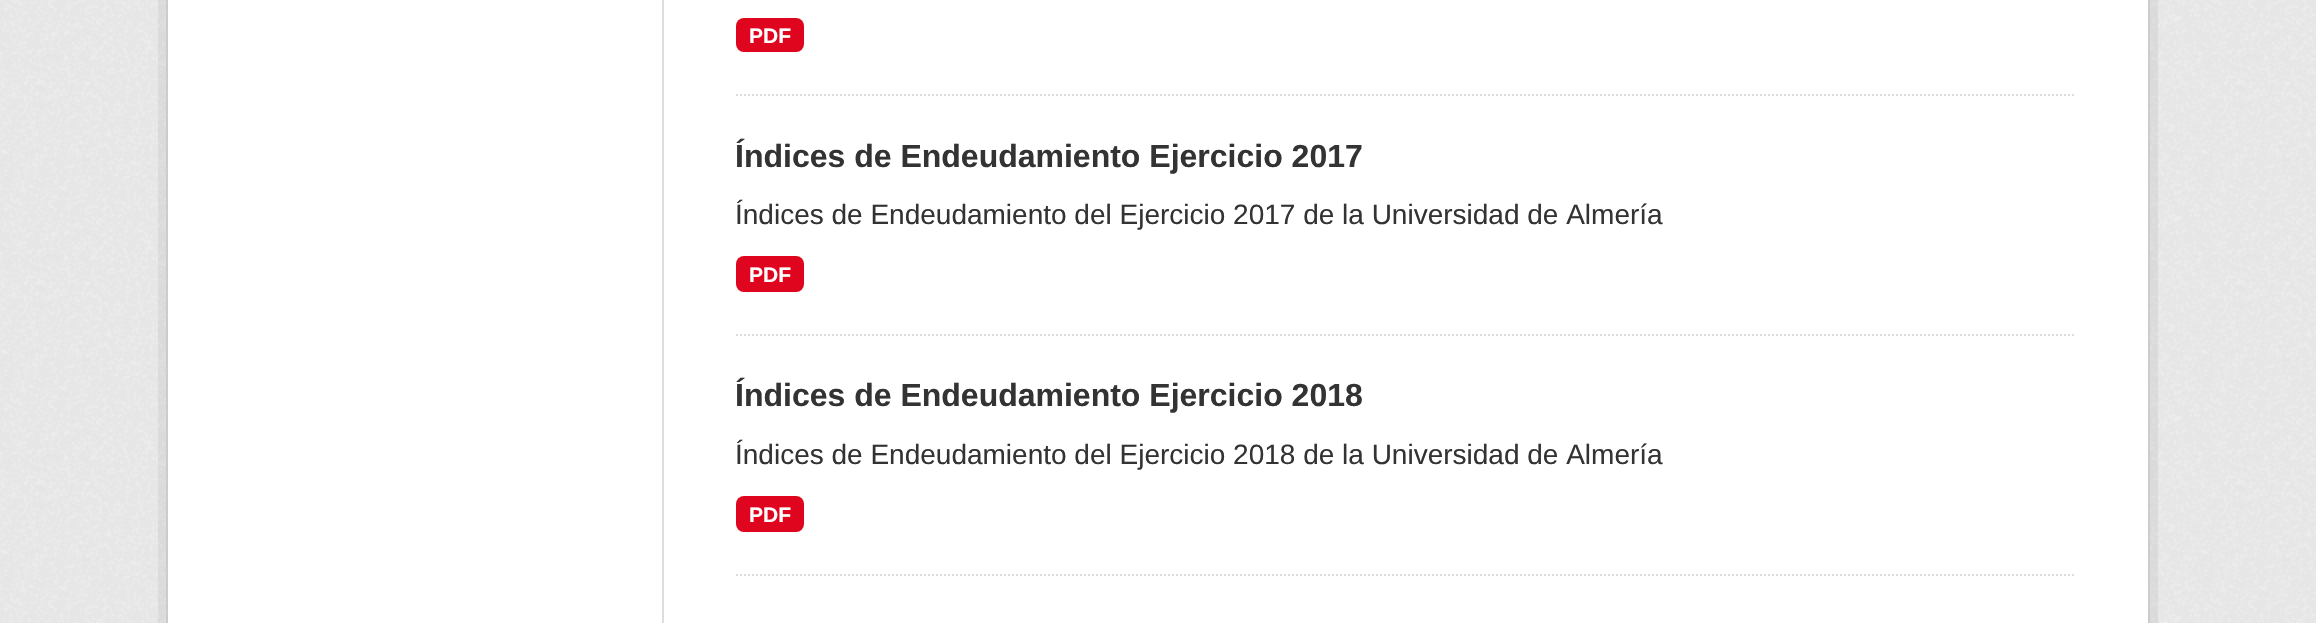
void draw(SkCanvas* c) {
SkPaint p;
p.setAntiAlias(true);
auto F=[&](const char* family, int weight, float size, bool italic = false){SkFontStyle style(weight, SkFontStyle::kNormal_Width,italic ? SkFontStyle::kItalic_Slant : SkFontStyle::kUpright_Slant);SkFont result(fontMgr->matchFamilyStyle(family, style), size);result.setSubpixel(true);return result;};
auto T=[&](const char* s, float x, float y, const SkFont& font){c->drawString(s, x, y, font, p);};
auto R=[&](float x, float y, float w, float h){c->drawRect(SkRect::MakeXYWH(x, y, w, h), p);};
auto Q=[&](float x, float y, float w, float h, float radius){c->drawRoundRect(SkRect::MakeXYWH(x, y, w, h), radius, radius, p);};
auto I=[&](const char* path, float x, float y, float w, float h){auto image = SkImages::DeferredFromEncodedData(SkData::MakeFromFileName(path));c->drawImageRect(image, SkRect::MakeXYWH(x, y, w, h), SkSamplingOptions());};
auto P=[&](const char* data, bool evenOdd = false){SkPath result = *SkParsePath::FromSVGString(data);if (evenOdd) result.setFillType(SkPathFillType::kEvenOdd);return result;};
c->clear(0xffeeeeee);
I("1.png",0,0,2316,623);
p.setStroke(true);
p.setStrokeWidth(8);
p.setColor(0x0d000000);
c->drawRect(SkRect::MakeXYWH(162,-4,1992,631),p);
p.setStroke(false);
p.setColor(0xffffffff);
c->drawRect(SkRect::MakeXYWH(167,-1,1982,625),p);
p.setStroke(true);
p.setStrokeWidth(2);
p.setColor(0xffcccccc);
c->drawRect(SkRect::MakeXYWH(167,-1,1982,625),p);
p.setStroke(false);
p.setColor(0xffdddddd);
R(662,0,2,623);
p.setStroke(true);
p.setPathEffect(SkDashPathEffect::Make({{2,2}}, 0));
c->drawPath(P("M736 95h1340"),p);
p.setPathEffect(nullptr);
p.setStroke(false);
p.setColor(0xffe0051e);
Q(736,18,68,34,8);
auto f1 = F("Liberation Sans",700,21);
p.setColor(0xffffffff);
T("PDF",749,43,f1);
p.setStroke(true);
p.setColor(0xffdddddd);
p.setPathEffect(SkDashPathEffect::Make({{2,2}}, 0));
c->drawPath(P("M736 335h1340"),p);
p.setPathEffect(nullptr);
auto f2 = F("Liberation Sans",700,32);
p.setStroke(false);
p.setColor(0xff333333);
T("Índices de Endeudamiento Ejercicio 2017",735,167,f2);
auto f3 = F("Liberation Sans",400,28);
T("Índices de Endeudamiento del Ejercicio 2017 de la Universidad de Almería",735,224,f3);
p.setColor(0xffe0051e);
Q(736,256,68,36,8);
p.setColor(0xffffffff);
T("PDF",749,282,f1);
p.setStroke(true);
p.setColor(0xffdddddd);
p.setPathEffect(SkDashPathEffect::Make({{2,2}}, 0));
c->drawPath(P("M736 575h1340"),p);
p.setPathEffect(nullptr);
p.setStroke(false);
p.setColor(0xff333333);
T("Índices de Endeudamiento Ejercicio 2018",735,406,f2);
T("Índices de Endeudamiento del Ejercicio 2018 de la Universidad de Almería",735,464,f3);
p.setColor(0xffe0051e);
Q(736,496,68,36,8);
p.setColor(0xffffffff);
T("PDF",749,522,f1);
}
